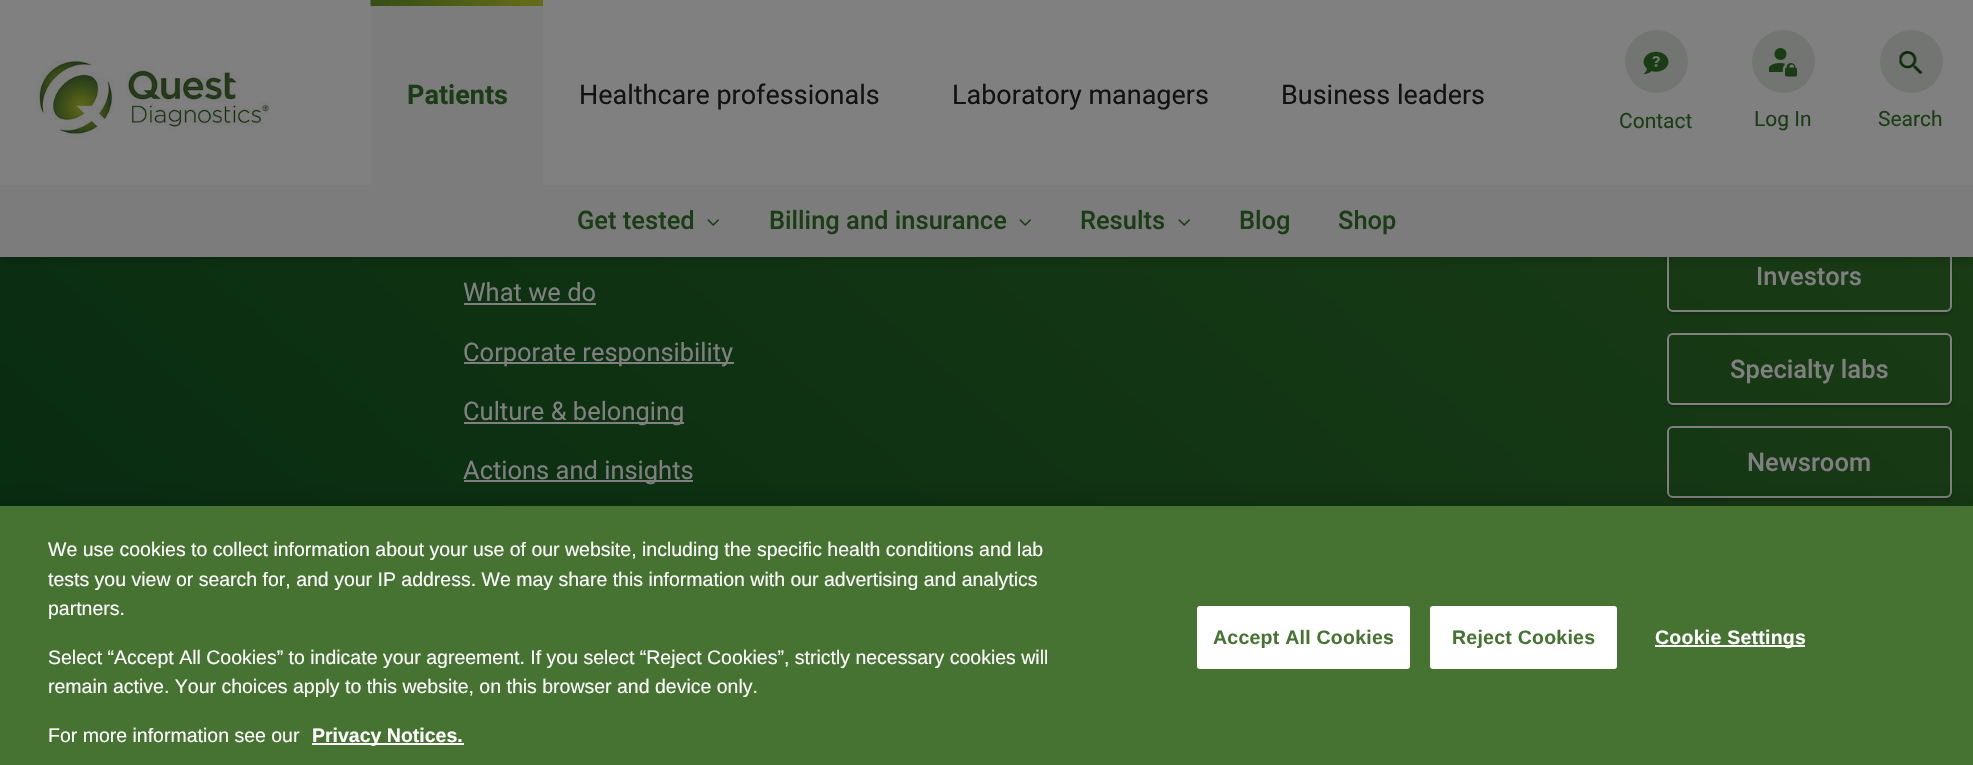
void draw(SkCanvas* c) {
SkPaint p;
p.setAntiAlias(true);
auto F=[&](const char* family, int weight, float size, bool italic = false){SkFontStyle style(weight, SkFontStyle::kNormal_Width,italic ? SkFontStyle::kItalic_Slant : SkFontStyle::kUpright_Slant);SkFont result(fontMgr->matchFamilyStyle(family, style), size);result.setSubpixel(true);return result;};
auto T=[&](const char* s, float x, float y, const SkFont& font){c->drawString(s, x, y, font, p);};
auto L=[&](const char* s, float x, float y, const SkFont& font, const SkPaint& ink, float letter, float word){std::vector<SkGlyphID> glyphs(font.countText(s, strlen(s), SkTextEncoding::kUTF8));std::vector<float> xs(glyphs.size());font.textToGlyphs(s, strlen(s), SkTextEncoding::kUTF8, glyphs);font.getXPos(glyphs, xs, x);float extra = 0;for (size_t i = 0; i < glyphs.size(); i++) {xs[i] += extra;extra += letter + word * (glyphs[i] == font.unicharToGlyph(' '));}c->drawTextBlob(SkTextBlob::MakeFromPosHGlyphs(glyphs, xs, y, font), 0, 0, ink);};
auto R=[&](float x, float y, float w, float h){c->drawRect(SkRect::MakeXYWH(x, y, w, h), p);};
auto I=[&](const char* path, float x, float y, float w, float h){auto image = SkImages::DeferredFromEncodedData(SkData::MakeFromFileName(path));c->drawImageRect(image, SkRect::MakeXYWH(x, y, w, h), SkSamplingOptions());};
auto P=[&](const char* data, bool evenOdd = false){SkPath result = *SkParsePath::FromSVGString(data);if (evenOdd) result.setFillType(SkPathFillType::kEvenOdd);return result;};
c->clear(0xffffffff);
{
const SkColor colors[] = {0xff1b3d15,0xff022610};
const float stops[] = {0,1};
const SkPoint ends[] = {{1748,-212}, {226,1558}};
p.setShader(SkGradientShader::MakeLinear(ends, colors, stops, 2, SkTileMode::kClamp));
p.setAlpha(255);
}
R(0,257,1973,249);
c->save();
c->clipPath(P("M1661 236h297v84h-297zm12 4h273c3.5 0 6 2.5 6 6v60c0 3.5-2.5 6-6 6h-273c-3.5 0-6-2.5-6-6v-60c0-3.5 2.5-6 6-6z",true),true);
p.setShader(nullptr);
p.setColor(0x38000000);
p.setMaskFilter(SkMaskFilter::MakeBlur(kNormal_SkBlurStyle, 1.5));
c->drawRoundRect(SkRect::MakeXYWH(1667,242,285,72),6,6,p);
p.setMaskFilter(nullptr);
c->restore();
p.setStroke(true);
p.setStrokeWidth(2);
p.setColor(0xff808080);
c->drawRoundRect(SkRect::MakeXYWH(1668,241,283,70),5,5,p);
p.setStroke(false);
p.setColor(0x26000000);
p.setMaskFilter(SkMaskFilter::MakeBlur(kNormal_SkBlurStyle, 5));
c->drawRect(SkRect::MakeXYWH(0,3,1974,257),p);
p.setMaskFilter(nullptr);
p.setColor(0xff808080);
R(0,0,1973,185);
I("1.png",36,60,234,78);
p.setColor(0xff7c7c7d);
R(371,6,172,179);
I("2.png",370,0,173,6);
auto f1 = F("Roboto",700,27);
p.setColor(0xff1b3d15);
T("Patients",407,104,f1);
auto f2 = F("Roboto",400,27);
p.setColor(0xff121213);
T("Healthcare professionals",579,104,f2);
T("Laboratory managers",952,104,f2);
T("Business leaders",1281,104,f2);
p.setColor(0xff727572);
c->drawCircle(1656.5,61.5,31.5,p);
I("3.png",1643,51,26,24);
auto f3 = F("Roboto",400,21);
p.setColor(0xff1b3d15);
T("Contact",1619,128,f3);
p.setColor(0xff727572);
c->drawCircle(1783.5,61.5,31.5,p);
I("4.png",1769,48,28,29);
p.setColor(0xff1b3d15);
T("Log In",1754,126,f3);
p.setColor(0xff727572);
c->drawCircle(1911.5,61.5,31.5,p);
I("5.png",1899,51,24,24);
p.setColor(0xff1b3d15);
T("Search",1878,126,f3);
p.setColor(0xff7c7c7d);
R(0,185,1973,72);
auto f4 = F("Roboto",500,25.5);
p.setColor(0xff1b3d15);
T("Get tested",577,229,f4);
I("6.png",707,219,12,7);
T("Billing and insurance",769,229,f4);
I("6.png",1019,219,12,7);
T("Results",1080,229,f4);
I("6.png",1178,219,12,7);
T("Blog",1239,229,f4);
T("Shop",1338,229,f4);
auto f5 = F("Roboto",400,25.5);
p.setColor(0xff808080);
T("What we do",463,301,f5);
R(464,303,132,2);
R(464,362,270,2);
T("Corporate responsibility",463,361,f5);
R(464,422,220,2);
T("Culture & belonging",463,420,f5);
R(464,480,229,2);
T("Actions and insights",463,479,f5);
T("Investors",1756,285,f4);
c->save();
c->clipPath(P("M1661 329h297v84h-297zm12 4h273c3.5 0 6 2.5 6 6v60c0 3.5-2.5 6-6 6h-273c-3.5 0-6-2.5-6-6v-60c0-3.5 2.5-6 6-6z",true),true);
p.setColor(0x38000000);
p.setMaskFilter(SkMaskFilter::MakeBlur(kNormal_SkBlurStyle, 1.5));
c->drawRoundRect(SkRect::MakeXYWH(1667,335,285,72),6,6,p);
p.setMaskFilter(nullptr);
c->restore();
p.setStroke(true);
p.setColor(0xff808080);
c->drawRoundRect(SkRect::MakeXYWH(1668,334,283,70),5,5,p);
p.setStroke(false);
T("Specialty labs",1730,378,f4);
c->save();
c->clipPath(P("M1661 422h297v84h-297zm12 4h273c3.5 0 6 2.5 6 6v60c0 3.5-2.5 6-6 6h-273c-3.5 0-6-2.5-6-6v-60c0-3.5 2.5-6 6-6z",true),true);
p.setColor(0x38000000);
p.setMaskFilter(SkMaskFilter::MakeBlur(kNormal_SkBlurStyle, 1.5));
c->drawRoundRect(SkRect::MakeXYWH(1667,428,285,72),6,6,p);
p.setMaskFilter(nullptr);
c->restore();
p.setStroke(true);
p.setColor(0xff808080);
c->drawRoundRect(SkRect::MakeXYWH(1668,427,283,70),5,5,p);
p.setStroke(false);
T("Newsroom",1747,471,f4);
p.setColor(0x33000000);
p.setMaskFilter(SkMaskFilter::MakeBlur(kNormal_SkBlurStyle, 13.5));
c->drawRect(SkRect::MakeXYWH(0,506,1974,259),p);
p.setMaskFilter(nullptr);
p.setColor(0xff467332);
R(0,506,1973,259);
auto f6 = F("Liberation Sans",400,19.5);
p.setColor(0xffffffff);
T("We use cookies to collect information about your use of our website, including the specific health conditions and lab",48,556,f6);
T("tests you view or search for, and your IP address. We may share this information with our advertising and analytics",48,586,f6);
T("partners.",48,615,f6);
T("Select “Accept All Cookies” to indicate your agreement. If you select “Reject Cookies”, strictly necessary cookies will",48,664,f6);
T("remain active. Your choices apply to this website, on this browser and device only.",48,693,f6);
T("For more information see our",48,742,f6);
R(312,743,152,2);
auto f7 = F("Liberation Sans",700,19.5);
T("Privacy Notices.",312,742,f7);
c->drawRoundRect(SkRect::MakeXYWH(1198,607,211,61),2,2,p);
p.setStroke(true);
c->drawRoundRect(SkRect::MakeXYWH(1198,607,211,61),2,2,p);
p.setStroke(false);
p.setColor(0xff467332);
L("Accept All Cookies",1213,644,f7,p,.25,0);
p.setColor(0xffffffff);
c->drawRoundRect(SkRect::MakeXYWH(1431,607,185,61),2,2,p);
p.setStroke(true);
c->drawRoundRect(SkRect::MakeXYWH(1431,607,185,61),2,2,p);
p.setStroke(false);
p.setColor(0xff467332);
L("Reject Cookies",1452,644,f7,p,.25,0);
p.setColor(0xffffffff);
R(1655,645,150,2);
L("Cookie Settings",1655,644,f7,p,.25,0);
}
